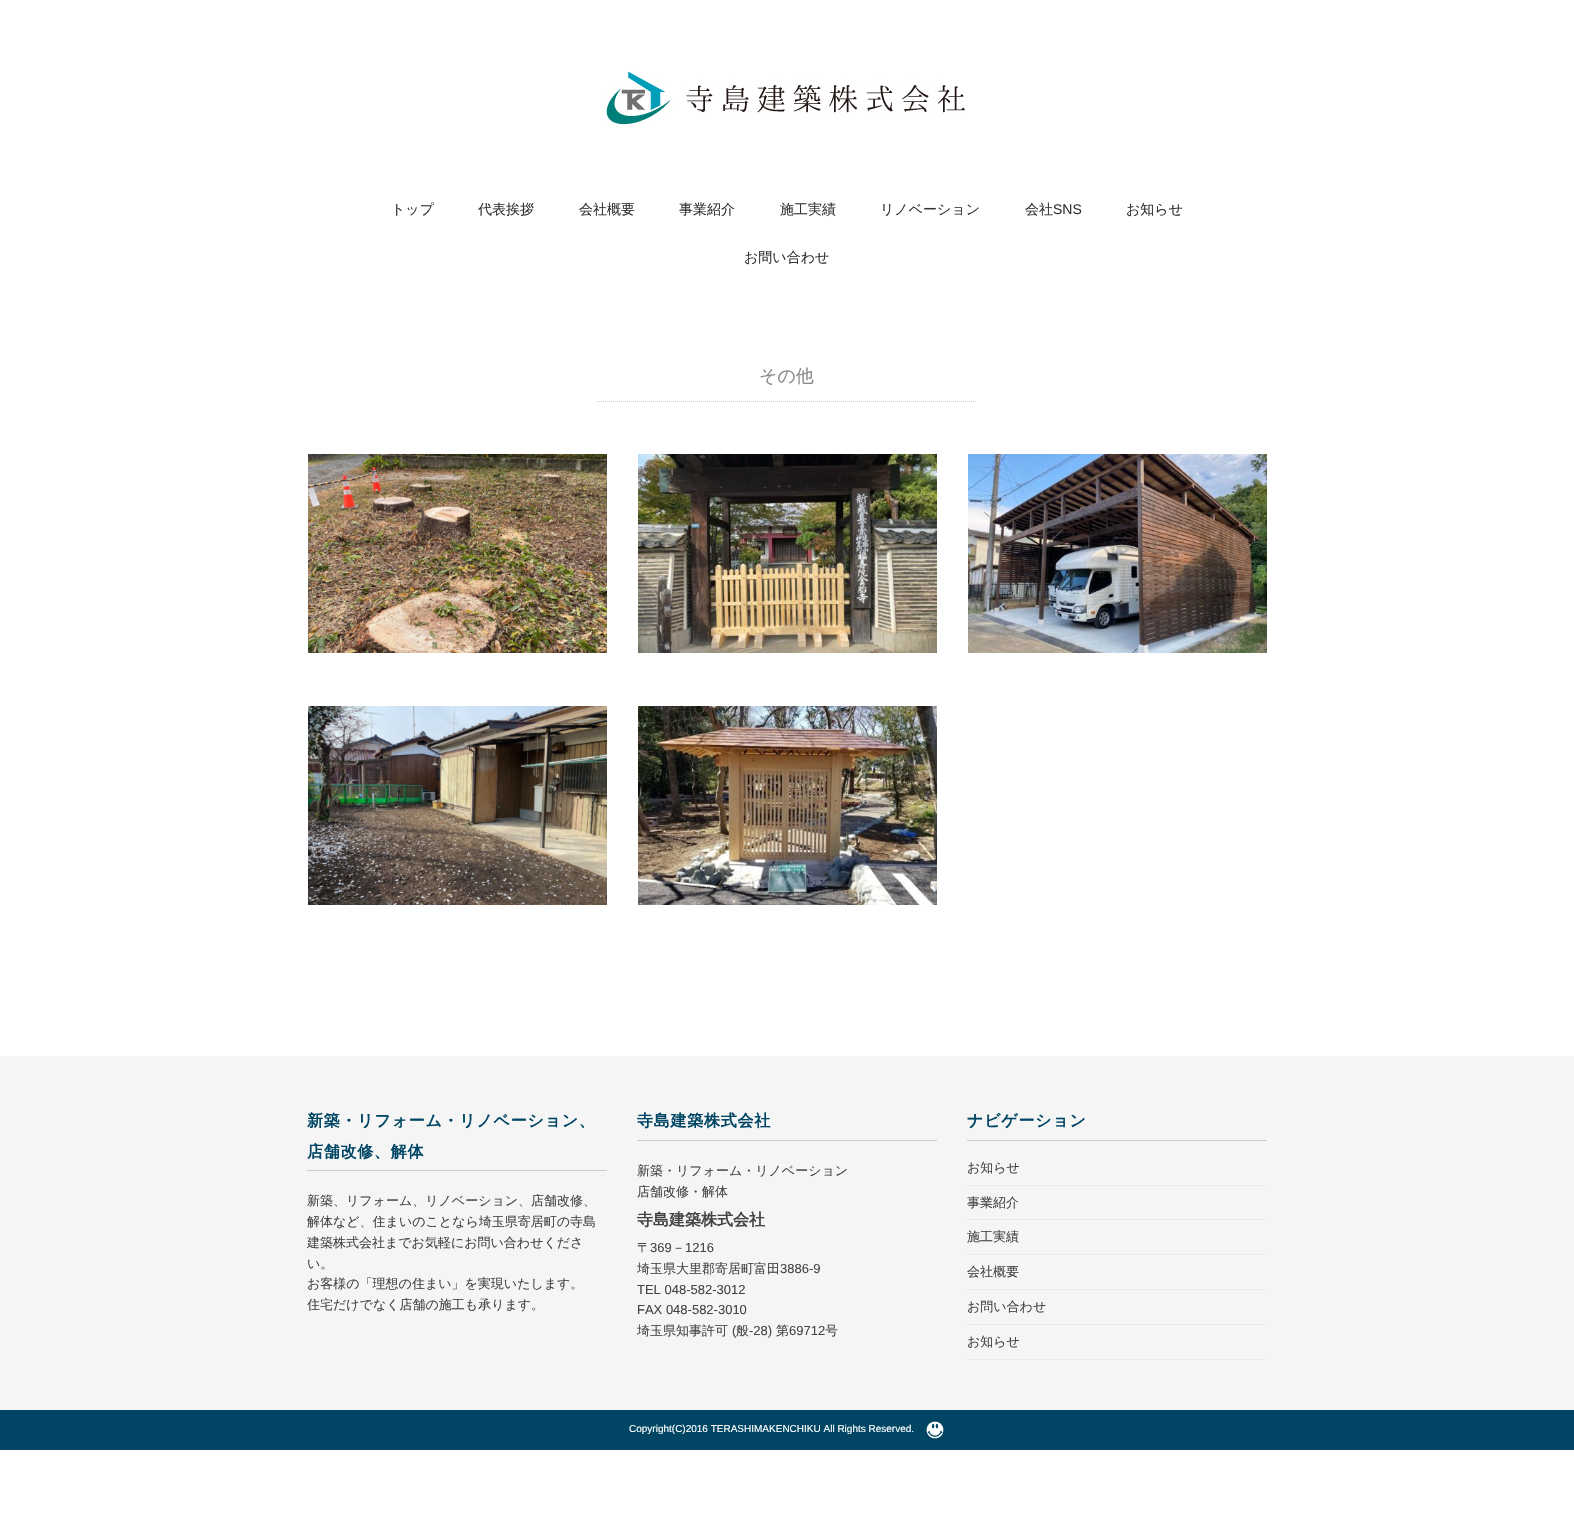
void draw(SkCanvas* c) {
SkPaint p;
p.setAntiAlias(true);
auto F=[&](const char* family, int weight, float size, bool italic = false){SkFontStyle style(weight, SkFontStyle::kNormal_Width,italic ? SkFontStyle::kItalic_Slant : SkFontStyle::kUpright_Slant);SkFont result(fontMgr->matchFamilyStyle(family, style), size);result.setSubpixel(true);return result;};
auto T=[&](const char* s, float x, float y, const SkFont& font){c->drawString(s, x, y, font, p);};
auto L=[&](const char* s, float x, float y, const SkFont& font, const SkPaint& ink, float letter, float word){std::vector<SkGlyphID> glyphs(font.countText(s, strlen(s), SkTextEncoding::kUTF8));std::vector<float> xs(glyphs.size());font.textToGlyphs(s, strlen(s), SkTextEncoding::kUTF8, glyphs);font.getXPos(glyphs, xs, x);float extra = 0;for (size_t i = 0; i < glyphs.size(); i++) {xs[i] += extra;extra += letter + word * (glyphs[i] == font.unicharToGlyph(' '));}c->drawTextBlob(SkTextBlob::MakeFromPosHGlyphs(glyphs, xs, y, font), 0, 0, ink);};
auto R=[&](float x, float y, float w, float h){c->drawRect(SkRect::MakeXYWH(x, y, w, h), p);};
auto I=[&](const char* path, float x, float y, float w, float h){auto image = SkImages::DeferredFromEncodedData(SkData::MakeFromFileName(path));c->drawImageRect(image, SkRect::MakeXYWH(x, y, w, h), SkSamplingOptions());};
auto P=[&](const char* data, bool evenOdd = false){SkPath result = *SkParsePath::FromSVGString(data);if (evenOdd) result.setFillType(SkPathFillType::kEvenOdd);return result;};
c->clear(0xffffffff);
I("1.png",606,71,359,53);
auto f1 = F("WenQuanYi Zen Hei",500,14);
p.setColor(0xff333333);
T("トップ",391,214,f1);
T("代表挨拶",478,214,f1);
T("会社概要",579,214,f1);
T("事業紹介",679,214,f1);
T("施工実績",780,214,f1);
T("リノベーション",880,214,f1);
T("会社",1025,214,f1);
auto f2 = F("Liberation Sans",400,14);
T("SNS",1053,214,f2);
T("お知らせ",1126,214,f1);
T("お問い合わせ",744,262,f1);
p.setStroke(true);
p.setStrokeWidth(1);
p.setColor(0xffcccccc);
p.setPathEffect(SkDashPathEffect::Make({{1,1}}, 0));
c->drawPath(P("M597 401.5h380"),p);
p.setPathEffect(nullptr);
auto f3 = F("WenQuanYi Zen Hei",500,18);
p.setStroke(false);
p.setColor(0xff888888);
T("その他",759,382,f3);
I("2.png",308,454,299,199);
I("3.png",638,454,299,199);
I("4.png",968,454,299,199);
I("5.png",308,706,299,199);
I("6.png",638,706,299,199);
p.setColor(0xfff5f5f5);
R(0,1056,1574,354);
p.setColor(0xffcccccc);
R(307,1170,300,1);
auto f4 = F("WenQuanYi Zen Hei",700,16);
p.setColor(0xff004664);
L("新築・リフォーム・リノベーション、",307,1126,f4,p,.75,0);
L("店舗改修、解体",307,1157,f4,p,.75,0);
auto f5 = F("WenQuanYi Zen Hei",500,13);
p.setColor(0xff444444);
T("新築、リフォーム、リノベーション、店舗改修、",307,1205,f5);
T("解体など、住まいのことなら埼玉県寄居町の寺島",307,1226,f5);
T("建築株式会社までお気軽にお問い合わせくださ",307,1247,f5);
T("い。",307,1268,f5);
T("お客様の「理想の住まい」を実現いたします。",307,1288,f5);
T("住宅だけでなく店舗の施工も承ります。",307,1309,f5);
p.setColor(0xffcccccc);
R(637,1140,300,1);
p.setColor(0xff004664);
L("寺島建築株式会社",637,1126,f4,p,.75,0);
p.setColor(0xff444444);
T("新築・リフォーム・リノベーション",637,1175,f5);
T("店舗改修・解体",637,1196,f5);
T("寺島建築株式会社",637,1225,f4);
T("〒",637,1252,f5);
auto f6 = F("Liberation Sans",400,13);
T("369",650,1252,f6);
T("－",672,1252,f5);
T("1216",685,1252,f6);
T("埼玉県大里郡寄居町富田",637,1273,f5);
T("3886-9",780,1273,f6);
T("TEL 048-582-3012",637,1294,f6);
T("FAX 048-582-3010",637,1314,f6);
T("埼玉県知事許可",637,1335,f5);
T("(",732,1335,f6);
T("般",736,1335,f5);
T("-28)",749,1335,f6);
T("第",776,1335,f5);
T("69712",789,1335,f6);
T("号",825,1335,f5);
p.setColor(0xffcccccc);
R(967,1140,300,1);
p.setColor(0xff004664);
L("ナビゲーション",967,1126,f4,p,.75,0);
p.setStroke(true);
p.setColor(0xffdddddd);
p.setPathEffect(SkDashPathEffect::Make({{1,1}}, 0));
c->drawPath(P("M967 1185.5h300"),p);
p.setPathEffect(nullptr);
p.setStroke(false);
p.setColor(0xff444444);
T("お知らせ",967,1172,f5);
p.setStroke(true);
p.setColor(0xffdddddd);
p.setPathEffect(SkDashPathEffect::Make({{1,1}}, 0));
c->drawPath(P("M967 1219.5h300"),p);
p.setPathEffect(nullptr);
p.setStroke(false);
p.setColor(0xff444444);
T("事業紹介",967,1207,f5);
p.setStroke(true);
p.setColor(0xffdddddd);
p.setPathEffect(SkDashPathEffect::Make({{1,1}}, 0));
c->drawPath(P("M967 1254.5h300"),p);
p.setPathEffect(nullptr);
p.setStroke(false);
p.setColor(0xff444444);
T("施工実績",967,1241,f5);
p.setStroke(true);
p.setColor(0xffdddddd);
p.setPathEffect(SkDashPathEffect::Make({{1,1}}, 0));
c->drawPath(P("M967 1289.5h300"),p);
p.setPathEffect(nullptr);
p.setStroke(false);
p.setColor(0xff444444);
T("会社概要",967,1276,f5);
p.setStroke(true);
p.setColor(0xffdddddd);
p.setPathEffect(SkDashPathEffect::Make({{1,1}}, 0));
c->drawPath(P("M967 1324.5h300"),p);
p.setPathEffect(nullptr);
p.setStroke(false);
p.setColor(0xff444444);
T("お問い合わせ",967,1311,f5);
p.setStroke(true);
p.setColor(0xffdddddd);
p.setPathEffect(SkDashPathEffect::Make({{1,1}}, 0));
c->drawPath(P("M967 1359.5h300"),p);
p.setPathEffect(nullptr);
p.setStroke(false);
p.setColor(0xff444444);
T("お知らせ",967,1346,f5);
p.setColor(0xff004664);
R(0,1410,1574,40);
auto f7 = F("Liberation Sans",400,10);
p.setColor(0xffffffff);
T("Copyright(C)2016 TERASHIMAKENCHIKU All Rights Reserved.",629,1432,f7);
I("7.png",926,1421,18,18);
}
